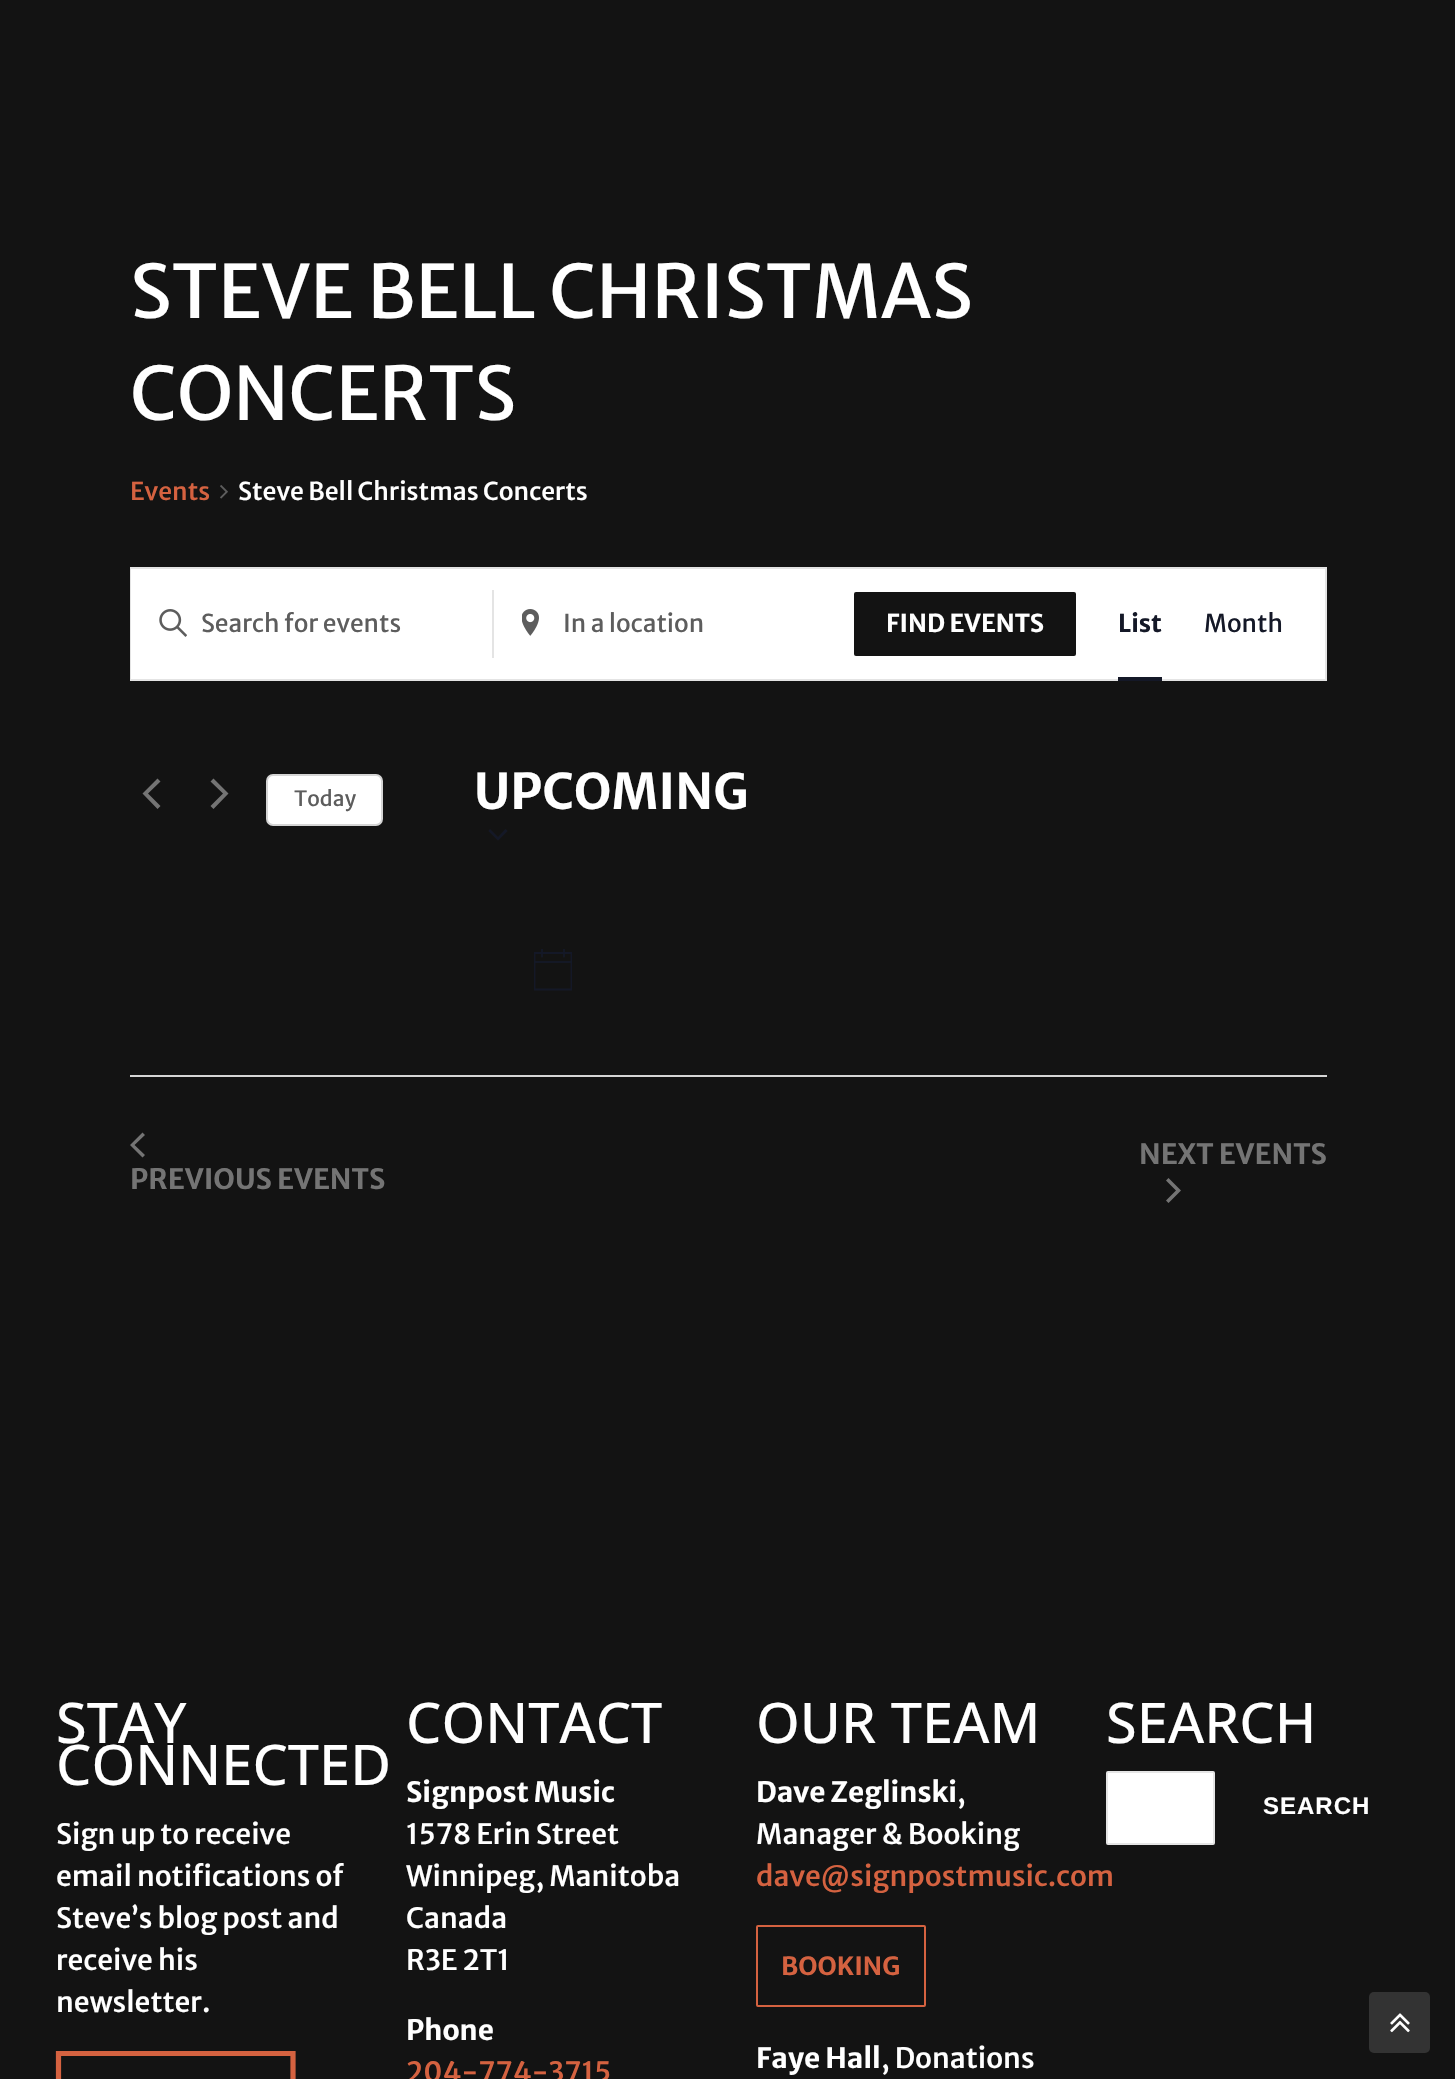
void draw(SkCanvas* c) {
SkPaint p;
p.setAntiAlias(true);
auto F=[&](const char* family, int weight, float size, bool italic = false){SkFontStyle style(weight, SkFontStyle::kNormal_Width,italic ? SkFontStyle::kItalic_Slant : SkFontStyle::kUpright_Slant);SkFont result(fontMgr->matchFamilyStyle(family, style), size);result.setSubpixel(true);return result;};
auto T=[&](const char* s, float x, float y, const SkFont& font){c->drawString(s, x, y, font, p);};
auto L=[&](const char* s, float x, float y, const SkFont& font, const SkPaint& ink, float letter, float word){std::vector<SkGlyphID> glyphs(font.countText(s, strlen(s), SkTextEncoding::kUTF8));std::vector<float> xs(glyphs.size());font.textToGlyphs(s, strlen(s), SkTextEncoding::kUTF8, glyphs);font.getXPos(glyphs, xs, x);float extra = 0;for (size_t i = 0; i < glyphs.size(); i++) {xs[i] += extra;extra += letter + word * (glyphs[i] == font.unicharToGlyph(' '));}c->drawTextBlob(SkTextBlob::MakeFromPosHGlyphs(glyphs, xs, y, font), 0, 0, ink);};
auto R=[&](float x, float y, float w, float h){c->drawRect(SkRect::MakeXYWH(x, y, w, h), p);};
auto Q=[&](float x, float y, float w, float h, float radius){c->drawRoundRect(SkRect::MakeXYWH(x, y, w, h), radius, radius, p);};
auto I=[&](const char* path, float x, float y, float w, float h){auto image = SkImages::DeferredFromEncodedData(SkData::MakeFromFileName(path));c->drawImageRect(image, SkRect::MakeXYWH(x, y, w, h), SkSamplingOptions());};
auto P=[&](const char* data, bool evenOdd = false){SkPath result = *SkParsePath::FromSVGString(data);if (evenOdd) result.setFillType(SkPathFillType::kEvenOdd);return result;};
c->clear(0xff131313);
auto f1 = F("Merriweather Sans",400,73.5);
p.setColor(0xffffffff);
T("STEVE BELL CHRISTMAS",130,318,f1);
T("CONCERTS",130,420,f1);
auto f2 = F("Merriweather Sans",500,24.5);
p.setColor(0xffd56240);
T("Events",130,500,f2);
I("1.png",220,485,8,14);
p.setColor(0xffffffff);
T("Steve Bell Christmas Concerts",238,500,f2);
R(1076,569,249,110);
p.setStroke(true);
p.setStrokeWidth(2);
p.setColor(0xffe4e4e4);
c->drawRect(SkRect::MakeXYWH(131,568,1195,112),p);
p.setStroke(false);
p.setColor(0xffffffff);
R(131,569,945,110);
p.setColor(0xffe4e4e4);
R(492,590,2,68);
I("2.png",159,609,28,28);
auto f3 = F("Merriweather Sans",400,24.5);
p.setColor(0xff5d5d5d);
T("Search for events",201,632,f3);
I("3.png",522,609,17,27);
T("In a location",563,632,f3);
p.setColor(0xff131313);
Q(854,592,222,64,2);
auto f4 = F("Merriweather Sans",700,24.5);
p.setColor(0xffffffff);
T("FIND EVENTS",886,632,f4);
p.setColor(0xff141827);
T("List",1118,632,f4);
R(1118,677,44,4);
T("Month",1204,632,f3);
p.setColor(0xff747474);
c->drawPath(P("M160.5 806l-3 3l-15-15.5l15-15l3 3l-12.5 12z"),p);
c->drawPath(P("M210.5 781.5l3-3l15 15l-15 15.5l-3-3l12.5-12.5z"),p);
p.setColor(0xffffffff);
c->drawRoundRect(SkRect::MakeXYWH(267,775,115,50),6,6,p);
p.setStroke(true);
p.setColor(0xffd5d5d5);
c->drawRoundRect(SkRect::MakeXYWH(267,775,115,50),6,6,p);
auto f5 = F("Merriweather Sans",400,21);
p.setStroke(false);
p.setColor(0xff5d5d5d);
T("Today",294,806,f5);
auto f6 = F("Merriweather Sans",700,49);
p.setColor(0xffffffff);
T("UPCOMING",474,809,f6);
p.setColor(0xff141827);
c->drawPath(P("M490 829l8 8l7.5-8l2 2l-9.5 9.5l-9.5-9.5z",true),p);
c->save();
c->clipRect(SkRect::MakeXYWH(534,949,38,42));
p.setStroke(true);
p.setStrokeWidth(1.8);
c->drawPath(P("M534.5 953h37v36.5h-37z"),p);
p.setStrokeCap(SkPaint::kRound_Cap);
c->drawPath(P("M542 949.5v7m22-7v7"),p);
c->restore();
p.setStroke(false);
p.setColor(0xe6141827);
R(534,961,38,2);
p.setColor(0xffd5d5d5);
R(130,1075,1197,2);
auto f7 = F("Merriweather Sans",700,28);
p.setColor(0xff747474);
T("NEXT EVENTS",1139,1164,f7);
c->drawPath(P("M1166 1180.5l2.5-2.5l12.5 12.5l-12.5 12.5l-2.5-2.5l10-10z"),p);
c->drawPath(P("M145 1155l-2.5 2.5l-12.5-12.5l12.5-12.5l2.5 2.5l-10.5 10z"),p);
T("PREVIOUS EVENTS",130,1189,f7);
auto f8 = F("Open Sans",500,56);
p.setColor(0xffffffff);
T("STAY",56,1743,f8);
T("CONNECTED",56,1785,f8);
auto f9 = F("Merriweather Sans",500,28);
T("Sign up to receive",56,1844,f9);
T("email notifications of",56,1886,f9);
T("Steve’s blog post and",56,1928,f9);
T("receive his",56,1970,f9);
T("newsletter.",56,2012,f9);
p.setStroke(true);
p.setStrokeWidth(5.2);
p.setStrokeCap(SkPaint::kButt_Cap);
p.setColor(0xffd56240);
c->drawPath(P("M58.5 2053.5h234.5v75.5h-234.5z"),p);
p.setStroke(false);
p.setColor(0xffffffff);
T("CONTACT",406,1743,f8);
T("Signpost Music",406,1802,f7);
T("1578 Erin Street",406,1844,f9);
T("Winnipeg, Manitoba",406,1886,f9);
T("Canada",406,1928,f9);
T("R3E 2T1",406,1970,f9);
T("Phone",406,2040,f7);
p.setColor(0xffd56240);
T("204-774-3715",406,2082,f9);
p.setColor(0xffffffff);
T("OUR TEAM",756,1743,f8);
T("Dave Zeglinski",756,1802,f7);
T(",",957,1802,f9);
T("Manager & Booking",756,1844,f9);
p.setColor(0xffd56240);
T("dave@signpostmusic.com",756,1886,f9);
p.setStroke(true);
p.setStrokeWidth(2);
c->drawRoundRect(SkRect::MakeXYWH(757,1926,168,80),1,1,p);
auto f10 = F("Merriweather Sans",700,25);
p.setStroke(false);
T("BOOKING",781,1975,f10);
p.setColor(0xffffffff);
T("Faye Hall",756,2068,f7);
T(", Donations",881,2068,f9);
T("SEARCH",1106,1743,f8);
c->drawRoundRect(SkRect::MakeXYWH(1107,1772,107,72),1,1,p);
p.setStroke(true);
p.setColor(0xffe5e5e5);
c->drawRoundRect(SkRect::MakeXYWH(1107,1772,107,72),1,1,p);
auto f11 = F("Liberation Sans",700,24);
p.setStroke(false);
p.setColor(0xffffffff);
L("SEARCH",1263,1814,f11,p,1,0);
p.setColor(0xff333333);
Q(1369,1992,61,61,5);
I("4.png",1390,2013,20,20);
}
